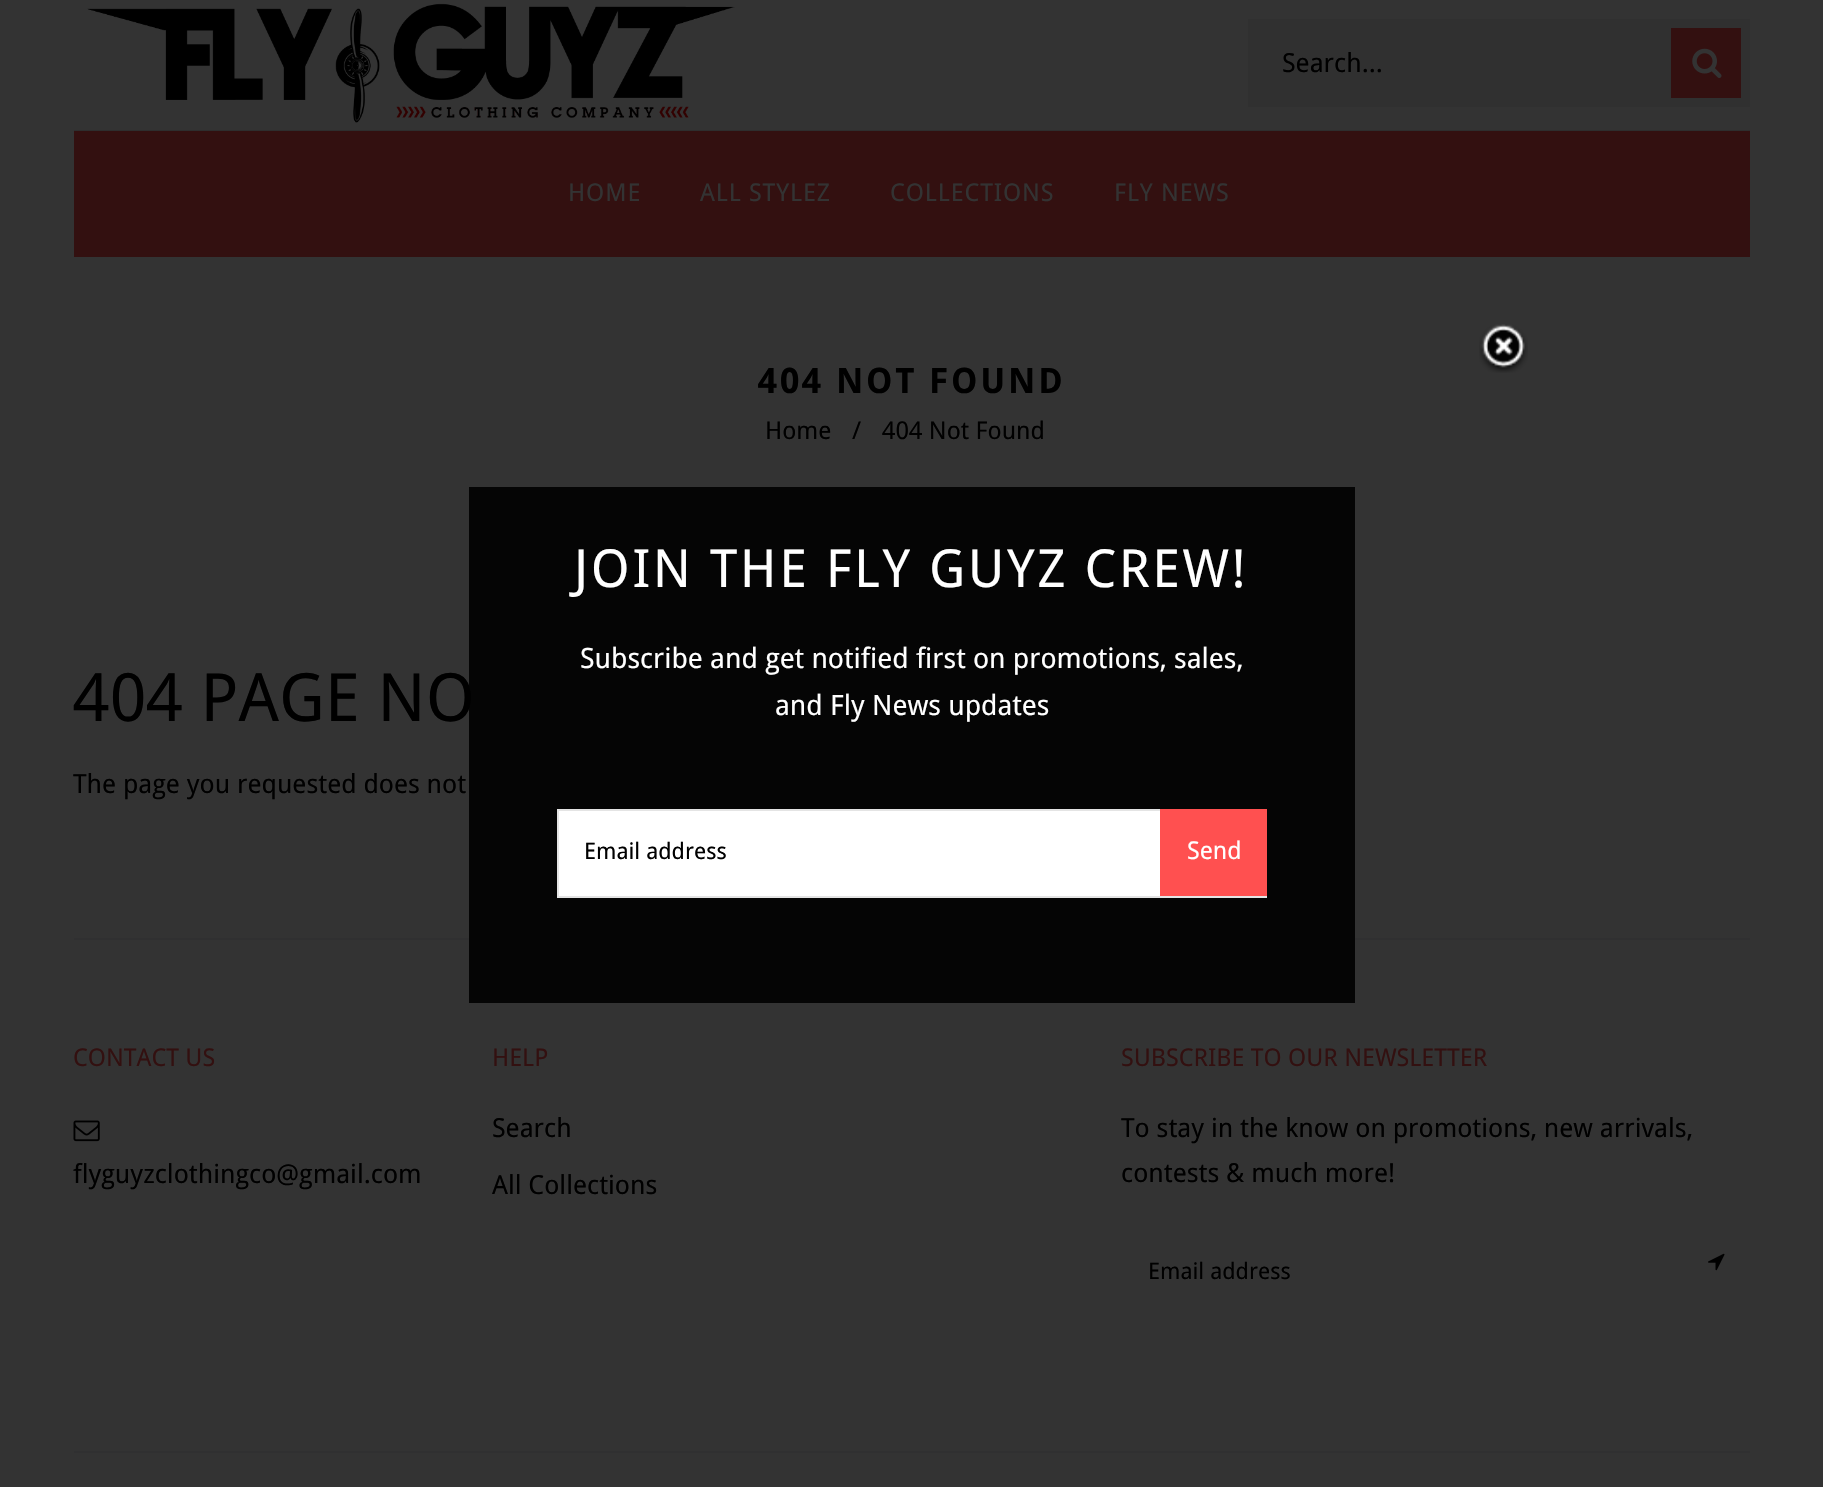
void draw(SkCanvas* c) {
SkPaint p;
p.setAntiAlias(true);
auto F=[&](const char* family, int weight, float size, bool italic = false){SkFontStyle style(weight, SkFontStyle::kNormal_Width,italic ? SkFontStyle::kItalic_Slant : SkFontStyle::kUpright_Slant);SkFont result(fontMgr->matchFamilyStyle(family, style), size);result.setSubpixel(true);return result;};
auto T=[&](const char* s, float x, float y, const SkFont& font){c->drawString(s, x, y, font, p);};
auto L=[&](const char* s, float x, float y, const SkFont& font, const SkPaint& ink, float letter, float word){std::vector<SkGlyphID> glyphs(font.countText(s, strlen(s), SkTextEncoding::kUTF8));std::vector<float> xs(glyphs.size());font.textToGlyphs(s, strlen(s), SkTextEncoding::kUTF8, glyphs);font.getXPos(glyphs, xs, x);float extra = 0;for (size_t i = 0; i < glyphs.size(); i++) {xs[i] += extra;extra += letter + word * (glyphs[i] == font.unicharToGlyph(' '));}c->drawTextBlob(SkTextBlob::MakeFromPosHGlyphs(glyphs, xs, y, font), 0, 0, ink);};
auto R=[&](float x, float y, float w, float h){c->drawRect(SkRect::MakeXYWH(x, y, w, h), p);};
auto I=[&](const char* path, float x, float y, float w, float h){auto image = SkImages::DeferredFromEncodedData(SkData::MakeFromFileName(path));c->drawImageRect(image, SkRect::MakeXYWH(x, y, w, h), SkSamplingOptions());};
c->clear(0xff333333);
p.setColor(0xff2e2e2e);
R(74,130,1676,1);
I("1.png",87,3,648,120);
p.setColor(0xff303030);
R(1248,19,502,88);
auto f1 = F("Droid Sans",400,26.25);
p.setColor(0xff000000);
T("Search...",1282,72,f1);
p.setColor(0xff331010);
R(1671,28,70,70);
I("2.png",1692,48,30,30);
R(74,131,1676,126);
auto f2 = F("Droid Sans",400,24.5);
p.setColor(0xff333333);
L("HOME",568,201,f2,p,.9,0);
L("ALL STYLEZ",700,201,f2,p,.9,0);
L("COLLECTIONS",890,201,f2,p,.9,0);
L("FLY NEWS",1114,201,f2,p,.9,0);
auto f3 = F("Droid Sans",700,35);
p.setColor(0xff000000);
L("404 NOT FOUND",758,393,f3,p,2.75,0);
T("Home",765,439,f2);
T("/",852,439,f2);
T("404 Not Found",882,439,f2);
auto f4 = F("Droid Sans",400,66.5);
T("404 PAGE NO",73,721,f4);
T("The page you requested does not",73,793,f1);
p.setColor(0xff303031);
R(74,938,1676,2);
R(74,1451,1676,2);
p.setColor(0xff331010);
T("CONTACT US",73,1066,f2);
I("3.png",73,1120,27,22);
p.setColor(0xff000000);
T("flyguyzclothingco@gmail.com",73,1183,f1);
p.setColor(0xff331010);
T("HELP",492,1066,f2);
p.setColor(0xff000000);
T("Search",492,1137,f1);
T("All Collections",492,1194,f1);
p.setColor(0xff331010);
T("SUBSCRIBE TO OUR NEWSLETTER",1121,1066,f2);
p.setColor(0xff000000);
T("To stay in the know on promotions, new arrivals,",1121,1137,f1);
T("contests & much more!",1121,1182,f1);
auto f5 = F("Droid Sans",400,22.75);
T("Email address",1148,1279,f5);
I("4.png",1708,1253,17,18);
I("5.png",1479,324,49,49);
p.setColor(0xe6000000);
R(469,487,886,516);
auto f6 = F("Droid Sans",400,52.5);
p.setColor(0xffffffff);
L("JOIN THE FLY GUYZ CREW!",574,587,f6,p,2.6,0);
auto f7 = F("Droid Sans",400,28);
T("Subscribe and get notified first on promotions, sales,",580,668,f7);
T("and Fly News updates",775,715,f7);
R(559,811,601,85);
p.setStroke(true);
p.setStrokeWidth(2);
p.setColor(0xffe4e4e4);
c->drawRect(SkRect::MakeXYWH(558,810,708,87),p);
p.setStroke(false);
p.setColor(0xff000000);
T("Email address",584,859,f5);
p.setColor(0xffff5050);
R(1160,809,107,87);
p.setColor(0xffffffff);
T("Send",1187,859,f2);
}
